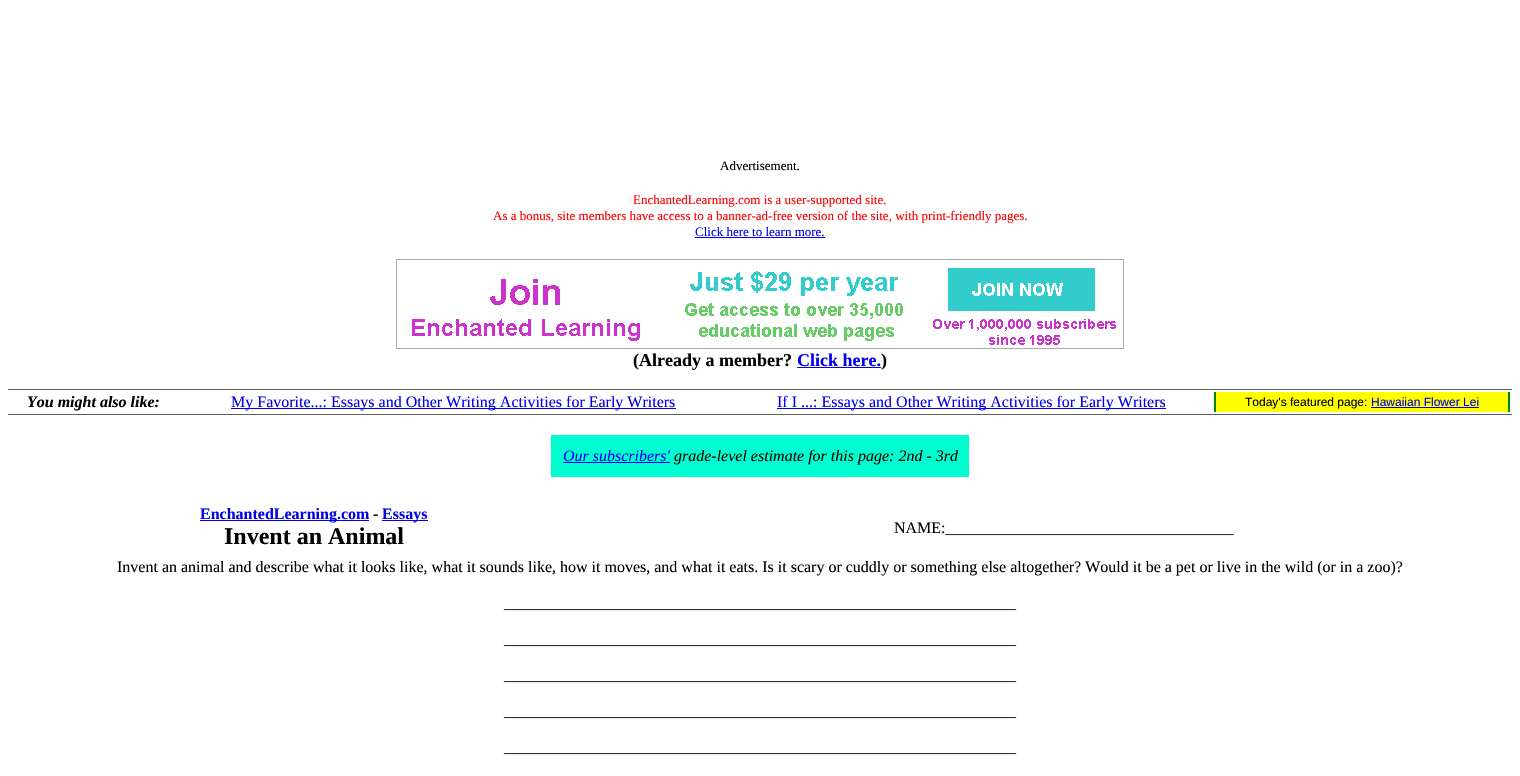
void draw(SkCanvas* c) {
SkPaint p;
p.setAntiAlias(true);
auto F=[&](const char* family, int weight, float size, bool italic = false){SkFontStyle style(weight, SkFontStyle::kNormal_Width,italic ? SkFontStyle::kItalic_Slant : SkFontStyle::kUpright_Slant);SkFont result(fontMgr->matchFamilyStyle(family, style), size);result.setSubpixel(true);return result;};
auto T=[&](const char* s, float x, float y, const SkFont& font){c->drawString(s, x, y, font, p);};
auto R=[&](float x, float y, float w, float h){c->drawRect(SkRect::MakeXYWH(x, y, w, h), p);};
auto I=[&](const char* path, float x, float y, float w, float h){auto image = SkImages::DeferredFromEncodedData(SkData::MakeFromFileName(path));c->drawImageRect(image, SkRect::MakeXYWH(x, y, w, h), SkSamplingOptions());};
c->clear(0xffffffff);
auto f1 = F("Liberation Serif",400,13);
p.setColor(0xff000000);
T("Advertisement.",720,170,f1);
p.setColor(0xffff0000);
T("EnchantedLearning.com is a user-supported site.",633,204,f1);
T("As a bonus, site members have access to a banner-ad-free version of the site, with print-friendly pages.",493,220,f1);
p.setColor(0xff0000ee);
T("Click here to learn more.",695,236,f1);
R(695,237,130,1);
I("1.png",396,259,728,90);
auto f2 = F("Liberation Serif",700,18);
p.setColor(0xff000000);
T("(Already a member?",633,366,f2);
p.setColor(0xff0000ee);
T("Click here.",797,366,f2);
p.setColor(0xff000000);
T(")",881,366,f2);
p.setColor(0xff0000ee);
R(797,367,84,1);
p.setColor(0xff5f5f5f);
R(8,389,1504,1);
R(8,414,1504,1);
auto f3 = F("Liberation Serif",700,16,true);
p.setColor(0xff000000);
T("You might also like:",27,407,f3);
p.setColor(0xff0000ee);
R(231,408,445,1);
auto f4 = F("Liberation Serif",400,16);
T("My Favorite...: Essays and Other Writing Activities for Early Writers",231,407,f4);
R(777,408,389,1);
T("If I ...: Essays and Other Writing Activities for Early Writers",777,407,f4);
p.setColor(0xffffff00);
R(1216,392,292,20);
p.setColor(0xff008800);
R(1508,392,2,20);
R(1214,392,2,20);
auto f5 = F("Liberation Sans",400,12);
p.setColor(0xff000000);
T("Today's featured page:",1245,406,f5);
p.setColor(0xff0000ee);
T("Hawaiian Flower Lei",1371,406,f5);
R(1371,407,108,1);
p.setColor(0xff00ffd0);
R(551,435,418,42);
auto f6 = F("Liberation Serif",400,16,true);
p.setColor(0xff0000ee);
T("Our subscribers'",563,461,f6);
R(563,462,107,1);
p.setColor(0xff000000);
T("grade-level estimate for this page: 2nd - 3rd",674,461,f6);
p.setColor(0xff0000ee);
R(200,520,169,1);
auto f7 = F("Liberation Serif",700,16);
T("EnchantedLearning.com",200,519,f7);
p.setColor(0xff000000);
T("-",373,519,f7);
p.setColor(0xff0000ee);
R(382,520,46,1);
T("Essays",382,519,f7);
auto f8 = F("Liberation Serif",700,24);
p.setColor(0xff000000);
T("Invent an Animal",224,544,f8);
T("NAME:____________________________________",894,533,f4);
T("Invent an animal and describe what it looks like, what it sounds like, how it moves, and what it eats. Is it scary or cuddly or something else altogether? Would it be a pet or live in the wild (or in a zoo)?",117,572,f4);
T("________________________________________________________________",504,608,f4);
T("________________________________________________________________",504,644,f4);
T("________________________________________________________________",504,680,f4);
T("________________________________________________________________",504,716,f4);
T("________________________________________________________________",504,752,f4);
}
